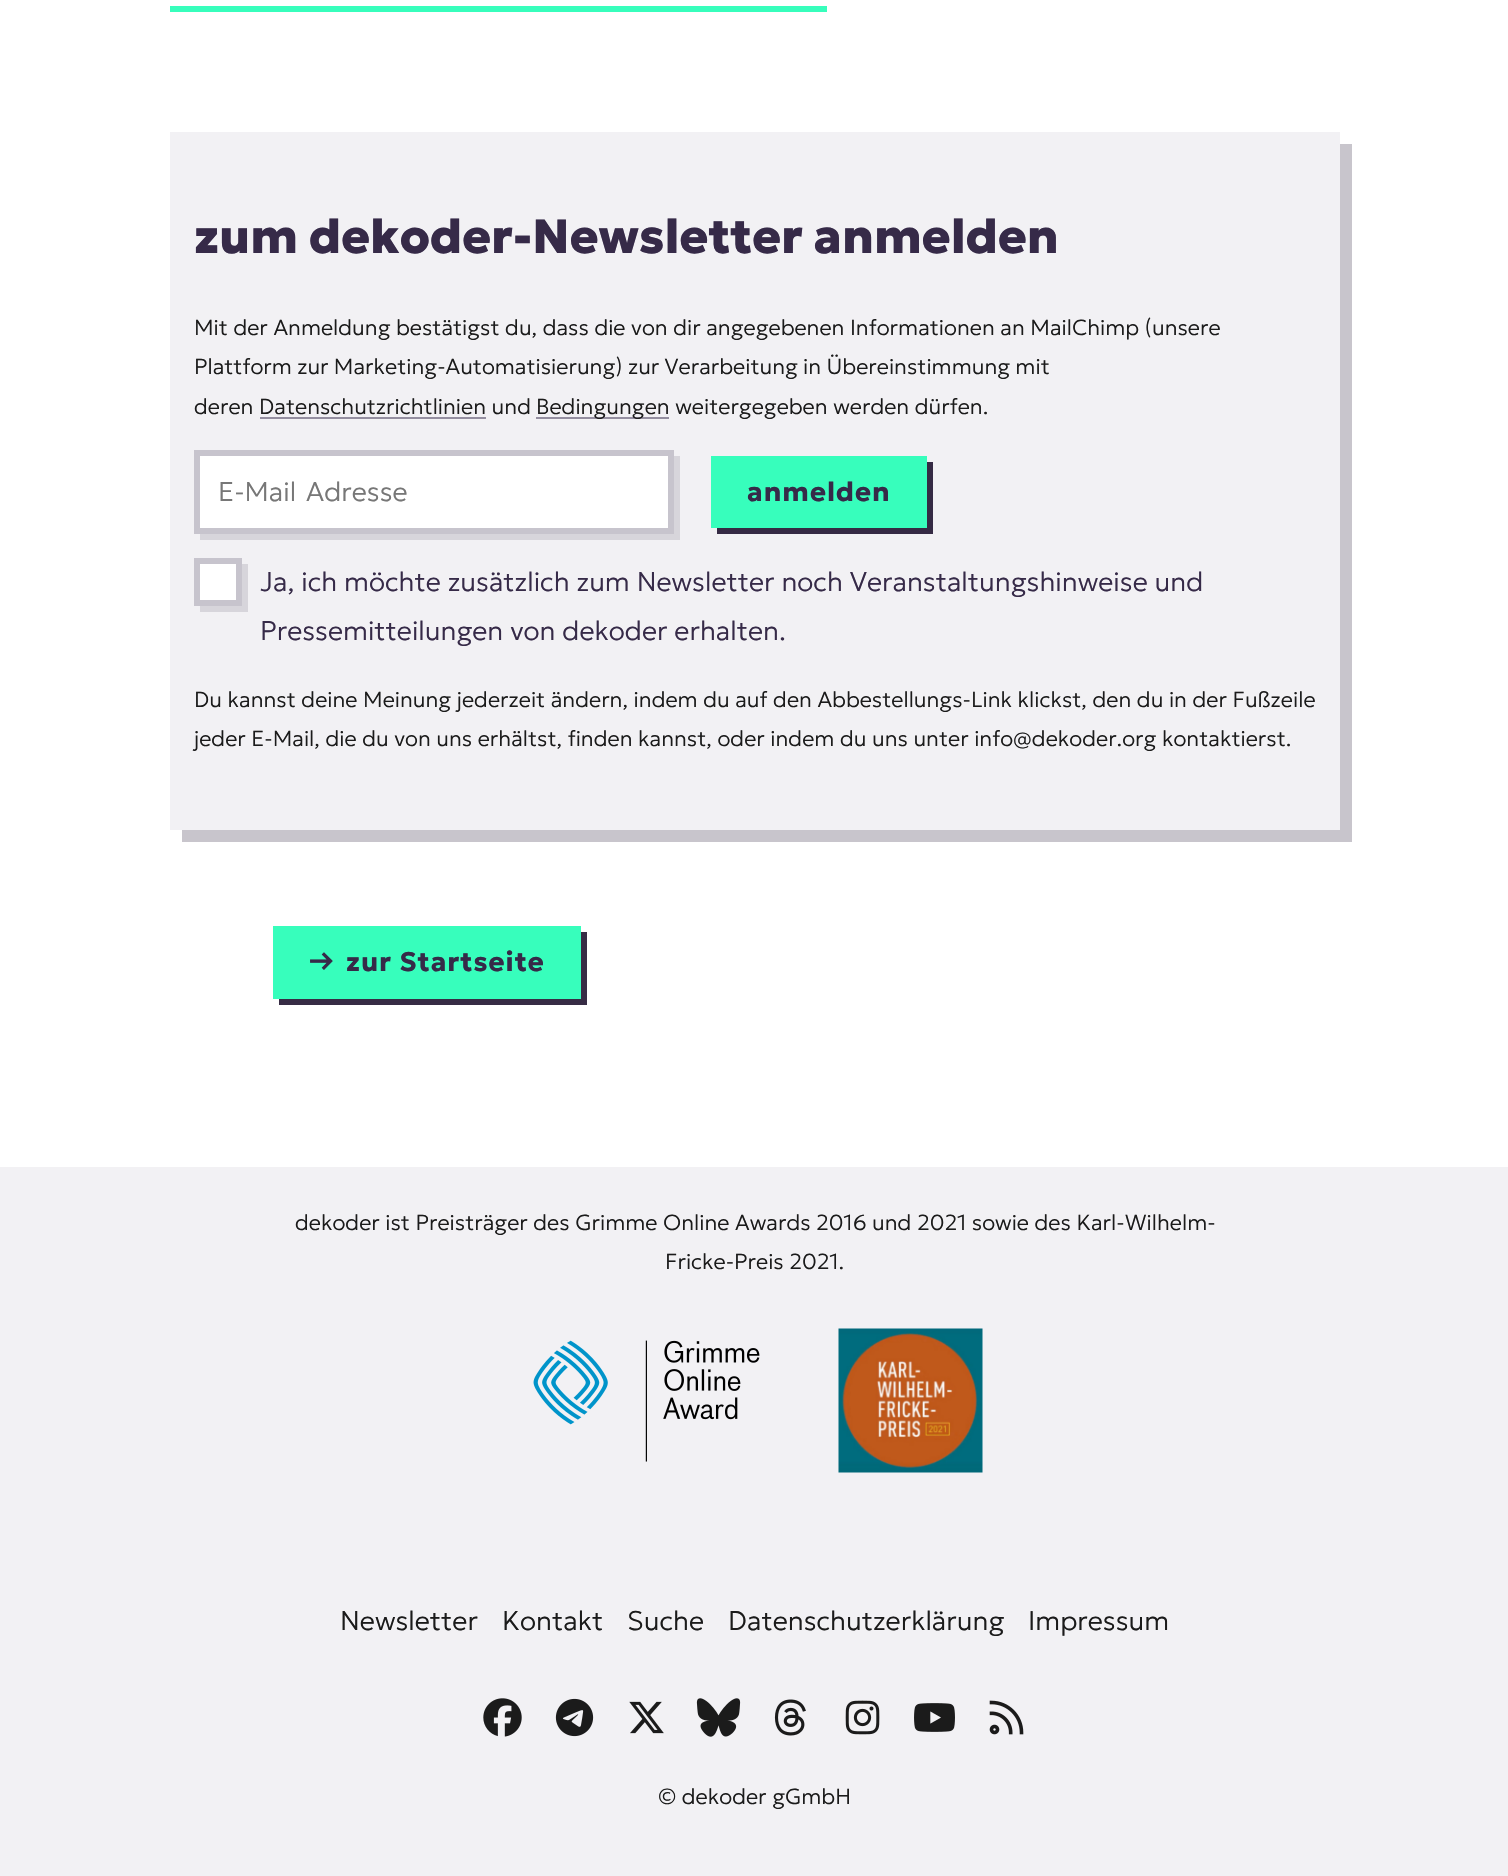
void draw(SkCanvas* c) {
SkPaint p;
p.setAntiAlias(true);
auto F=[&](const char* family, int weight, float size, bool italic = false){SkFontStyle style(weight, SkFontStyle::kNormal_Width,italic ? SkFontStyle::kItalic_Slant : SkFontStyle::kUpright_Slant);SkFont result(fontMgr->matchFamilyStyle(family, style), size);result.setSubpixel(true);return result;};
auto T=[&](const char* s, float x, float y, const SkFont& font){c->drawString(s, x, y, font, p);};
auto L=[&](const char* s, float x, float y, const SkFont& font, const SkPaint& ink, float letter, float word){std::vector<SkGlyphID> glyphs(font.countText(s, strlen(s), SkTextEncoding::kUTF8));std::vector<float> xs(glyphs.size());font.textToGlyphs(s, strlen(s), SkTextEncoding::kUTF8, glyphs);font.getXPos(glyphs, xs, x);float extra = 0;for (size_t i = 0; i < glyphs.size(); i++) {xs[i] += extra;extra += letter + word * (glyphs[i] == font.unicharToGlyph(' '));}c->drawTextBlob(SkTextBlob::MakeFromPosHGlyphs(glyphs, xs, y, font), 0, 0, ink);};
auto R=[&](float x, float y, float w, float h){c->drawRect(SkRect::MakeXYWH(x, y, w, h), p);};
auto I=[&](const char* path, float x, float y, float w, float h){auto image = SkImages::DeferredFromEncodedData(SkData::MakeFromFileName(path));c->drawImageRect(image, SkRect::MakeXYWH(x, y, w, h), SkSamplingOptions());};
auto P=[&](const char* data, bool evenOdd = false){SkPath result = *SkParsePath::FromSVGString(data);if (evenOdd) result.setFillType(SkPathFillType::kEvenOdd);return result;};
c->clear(0xffffffff);
p.setColor(0xff37febc);
R(170,6,657,6);
p.setColor(0xffc8c5cc);
c->drawPath(P("M182 830v12h1170v-698h-12v686z"),p);
p.setColor(0xfff2f1f4);
R(170,132,1170,698);
auto f1 = F("Geologica",800,48,true);
p.setColor(0xff362a48);
T("zum dekoder-Newsletter anmelden",194,253,f1);
auto f2 = F("Geologica",200,21.78,true);
p.setColor(0xff1b1b1b);
T("Mit der Anmeldung bestätigst du, dass die von dir angegebenen Informationen an MailChimp (unsere",194,335,f2);
L("Plattform zur Marketing-Automatisierung) zur Verarbeitung in Übereinstimmung mit",194,374,f2,p,0,-.25);
T("deren Datenschutzrichtlinien und",194,414,f2);
p.setColor(0xff948ea0);
R(536,417,133,2);
p.setColor(0xff1b1b1b);
T("Bedingungen weitergegeben werden dürfen.",536,414,f2);
p.setColor(0xff948ea0);
R(260,417,226,2);
p.setColor(0xffd7d5db);
c->drawPath(P("M200 534v6h480v-84h-6v78z"),p);
p.setColor(0xffffffff);
c->drawRect(SkRect::MakeXYWH(197,453,474,78),p);
p.setStroke(true);
p.setStrokeWidth(6);
p.setColor(0xffc7c4cd);
c->drawRect(SkRect::MakeXYWH(197,453,474,78),p);
auto f3 = F("Geologica",200,27,true);
p.setStroke(false);
p.setColor(0xff777777);
L("E-Mail Adresse",218,501,f3,p,0,3);
p.setColor(0xff352a44);
c->drawPath(P("M717 528v6h216v-72h-6v66z"),p);
p.setColor(0xff37febc);
R(711,456,216,72);
auto f4 = F("Geologica",700,27,true);
p.setColor(0xff362a48);
L("anmelden",747,501,f4,p,1,0);
p.setColor(0xffd7d5db);
c->drawPath(P("M200 606v6h48v-48h-6v42z"),p);
p.setColor(0xffffffff);
c->drawRect(SkRect::MakeXYWH(197,561,42,42),p);
p.setStroke(true);
p.setColor(0xffc7c4cd);
c->drawRect(SkRect::MakeXYWH(197,561,42,42),p);
p.setStroke(false);
p.setColor(0xff362a48);
T("Ja, ich möchte zusätzlich zum Newsletter noch Veranstaltungshinweise und",260,591,f3);
T("Pressemitteilungen von dekoder erhalten.",260,640,f3);
p.setColor(0xff1b1b1b);
T("Du kannst deine Meinung jederzeit ändern, indem du auf den Abbestellungs-Link klickst, den du in der Fußzeile",194,707,f2);
T("jeder E-Mail, die du von uns erhältst, finden kannst, oder indem du uns unter info@dekoder.org kontaktierst.",194,746,f2);
p.setColor(0xff372c45);
c->drawPath(P("M279 999v6h308v-73h-7v67z"),p);
p.setColor(0xff37febc);
R(273,926,308,73);
p.setColor(0xff362a48);
L("→",309,971,f4,p,1,0);
L("zur Startseite",346,971,f4,p,1,0);
p.setColor(0xfff2f1f4);
R(0,1167,1508,709);
p.setColor(0xff1b1b1b);
T("dekoder ist Preisträger des Grimme Online Awards 2016 und 2021 sowie des Karl-Wilhelm-",295,1230,f2);
T("Fricke-Preis 2021.",665,1269,f2);
I("1.png",533,1340,227,122);
I("2.png",838,1328,145,145);
T("Newsletter",340,1630,f3);
T("Kontakt",502,1630,f3);
T("Suche",627,1630,f3);
T("Datenschutzerklärung",728,1630,f3);
T("Impressum",1028,1630,f3);
I("3.png",483,1698,39,39);
I("4.png",555,1698,39,39);
I("5.png",629,1701,35,33);
I("6.png",696,1698,45,39);
I("7.png",774,1699,32,37);
I("8.png",845,1700,35,35);
I("9.png",914,1703,41,29);
I("10.png",989,1700,35,35);
T("© dekoder gGmbH",658,1804,f2);
}
